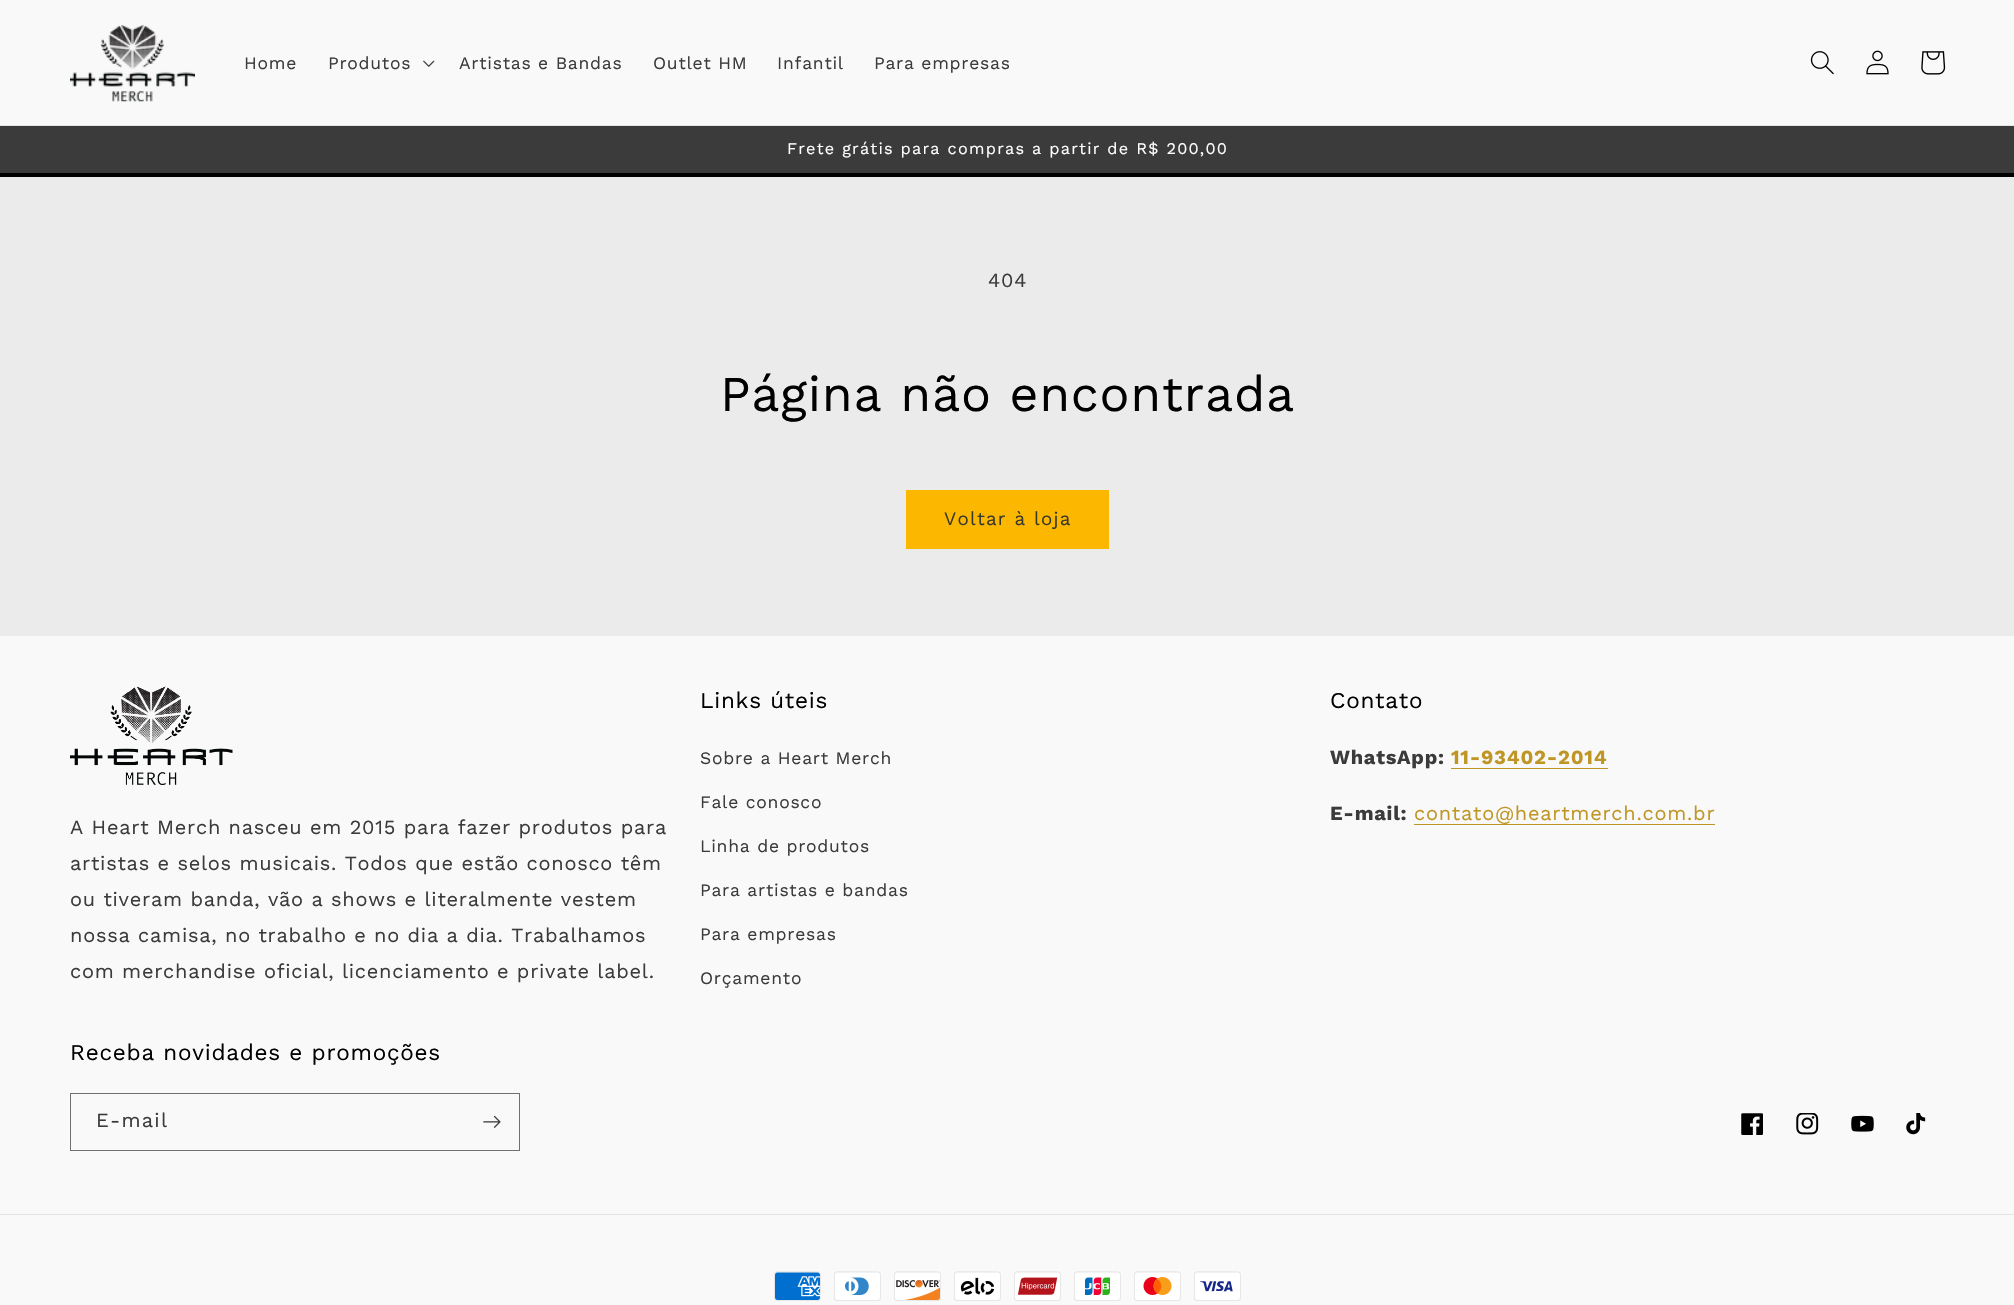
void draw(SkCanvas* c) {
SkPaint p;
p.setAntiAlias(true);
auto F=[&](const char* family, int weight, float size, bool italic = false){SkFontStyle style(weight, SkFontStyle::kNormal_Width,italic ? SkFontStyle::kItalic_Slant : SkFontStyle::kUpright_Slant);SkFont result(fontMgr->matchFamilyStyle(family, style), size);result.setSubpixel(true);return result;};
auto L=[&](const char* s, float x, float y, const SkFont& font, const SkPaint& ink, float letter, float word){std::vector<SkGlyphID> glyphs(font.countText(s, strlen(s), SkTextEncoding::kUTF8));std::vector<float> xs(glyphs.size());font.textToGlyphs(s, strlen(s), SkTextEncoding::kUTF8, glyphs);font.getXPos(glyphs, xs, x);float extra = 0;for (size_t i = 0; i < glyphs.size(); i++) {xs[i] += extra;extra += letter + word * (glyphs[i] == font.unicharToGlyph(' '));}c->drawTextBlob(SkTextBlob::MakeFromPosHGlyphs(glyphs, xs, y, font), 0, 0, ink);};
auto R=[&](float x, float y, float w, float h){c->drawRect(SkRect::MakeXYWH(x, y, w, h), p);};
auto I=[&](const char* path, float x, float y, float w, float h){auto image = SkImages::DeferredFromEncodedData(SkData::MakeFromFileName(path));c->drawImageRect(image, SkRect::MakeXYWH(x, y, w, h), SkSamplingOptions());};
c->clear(0xffebebeb);
p.setColor(0xfff9f9f9);
R(0,0,2014,125);
p.setColor(0xffe5e5e5);
R(0,125,2014,1);
I("1.png",70,24,125,78);
auto f1 = F("Work Sans",400,17.5);
p.setColor(0xff3b3b3b);
L("Home",244,69,f1,p,.75,0);
L("Produtos",328,69,f1,p,.75,0);
I("2.png",423,60,12,7);
L("Artistas e Bandas",459,69,f1,p,.75,0);
L("Outlet HM",653,69,f1,p,.75,0);
L("Infantil",777,69,f1,p,.75,0);
L("Para empresas",874,69,f1,p,.75,0);
I("3.png",1810,51,24,24);
I("4.png",1866,50,23,25);
I("5.png",1921,51,25,24);
R(0,126,2014,47);
p.setColor(0xff000000);
R(0,173,2014,4);
auto f2 = F("Work Sans",400,16.25);
p.setColor(0xffffffff);
L("Frete grátis para compras a partir de R$ 200,00",787,154,f2,p,1.25,0);
auto f3 = F("Work Sans",400,20);
p.setColor(0xff3b3b3b);
L("404",988,287,f3,p,.75,0);
auto f4 = F("Work Sans",400,50);
p.setColor(0xff000000);
L("Página não encontrada",720,411,f4,p,.75,0);
p.setColor(0xfffcb800);
R(906,490,203,59);
auto f5 = F("Work Sans",400,18.75);
p.setColor(0xff38382d);
L("Voltar à loja",944,525,f5,p,1.25,0);
p.setColor(0xfff9f9f9);
R(0,636,2014,669);
auto f6 = F("Work Sans",400,22.5);
p.setColor(0xff000000);
L("Links úteis",700,708,f6,p,.75,0);
p.setColor(0xff3b3b3b);
L("Sobre a Heart Merch",700,764,f1,p,.75,0);
L("Fale conosco",700,808,f1,p,.75,0);
L("Linha de produtos",700,852,f1,p,.75,0);
L("Para artistas e bandas",700,896,f1,p,.75,0);
L("Para empresas",700,940,f1,p,.75,0);
L("Orçamento",700,984,f1,p,.75,0);
p.setColor(0xff000000);
L("Contato",1330,708,f6,p,.75,0);
auto f7 = F("Work Sans",700,20);
p.setColor(0xff3b3b3b);
L("WhatsApp:",1330,764,f7,p,.75,0);
p.setColor(0xffbf9625);
L("11-93402-2014",1451,764,f7,p,.75,0);
R(1451,768,157,1);
p.setColor(0xff3b3b3b);
L("E-mail:",1330,820,f7,p,.75,0);
p.setColor(0xffbf9625);
L("contato@heartmerch.com.br",1414,820,f3,p,.75,0);
R(1414,824,301,1);
I("6.png",70,686,163,99);
p.setColor(0xff3b3b3b);
L("A Heart Merch nasceu em 2015 para fazer produtos para",70,834,f3,p,.75,0);
L("artistas e selos musicais. Todos que estão conosco têm",70,870,f3,p,.75,0);
L("ou tiveram banda, vão a shows e literalmente vestem",70,906,f3,p,.75,0);
L("nossa camisa, no trabalho e no dia a dia. Trabalhamos",70,942,f3,p,.75,0);
L("com merchandise oficial, licenciamento e private label.",70,978,f3,p,.75,0);
p.setColor(0xff000000);
L("Receba novidades e promoções",70,1060,f6,p,.75,0);
p.setStroke(true);
p.setStrokeWidth(1);
p.setColor(0xff707070);
c->drawRect(SkRect::MakeXYWH(70.5,1093.5,449,57),p);
p.setStroke(false);
p.setColor(0xff3b3b3b);
L("E-mail",96,1127,f3,p,1.25,0);
I("7.png",483,1115,18,13);
I("8.png",1741,1113,22,22);
I("9.png",1796,1113,23,22);
I("10.png",1851,1115,23,17);
I("11.png",1906,1113,20,22);
p.setColor(0xffe5e5e5);
R(0,1214,2014,1);
I("12.png",774,1271,47,30);
I("13.png",834,1271,47,30);
I("14.png",894,1271,47,30);
I("15.png",954,1271,47,30);
I("16.png",1014,1271,47,30);
I("17.png",1074,1271,47,30);
I("18.png",1134,1271,47,30);
I("19.png",1194,1271,47,30);
}
